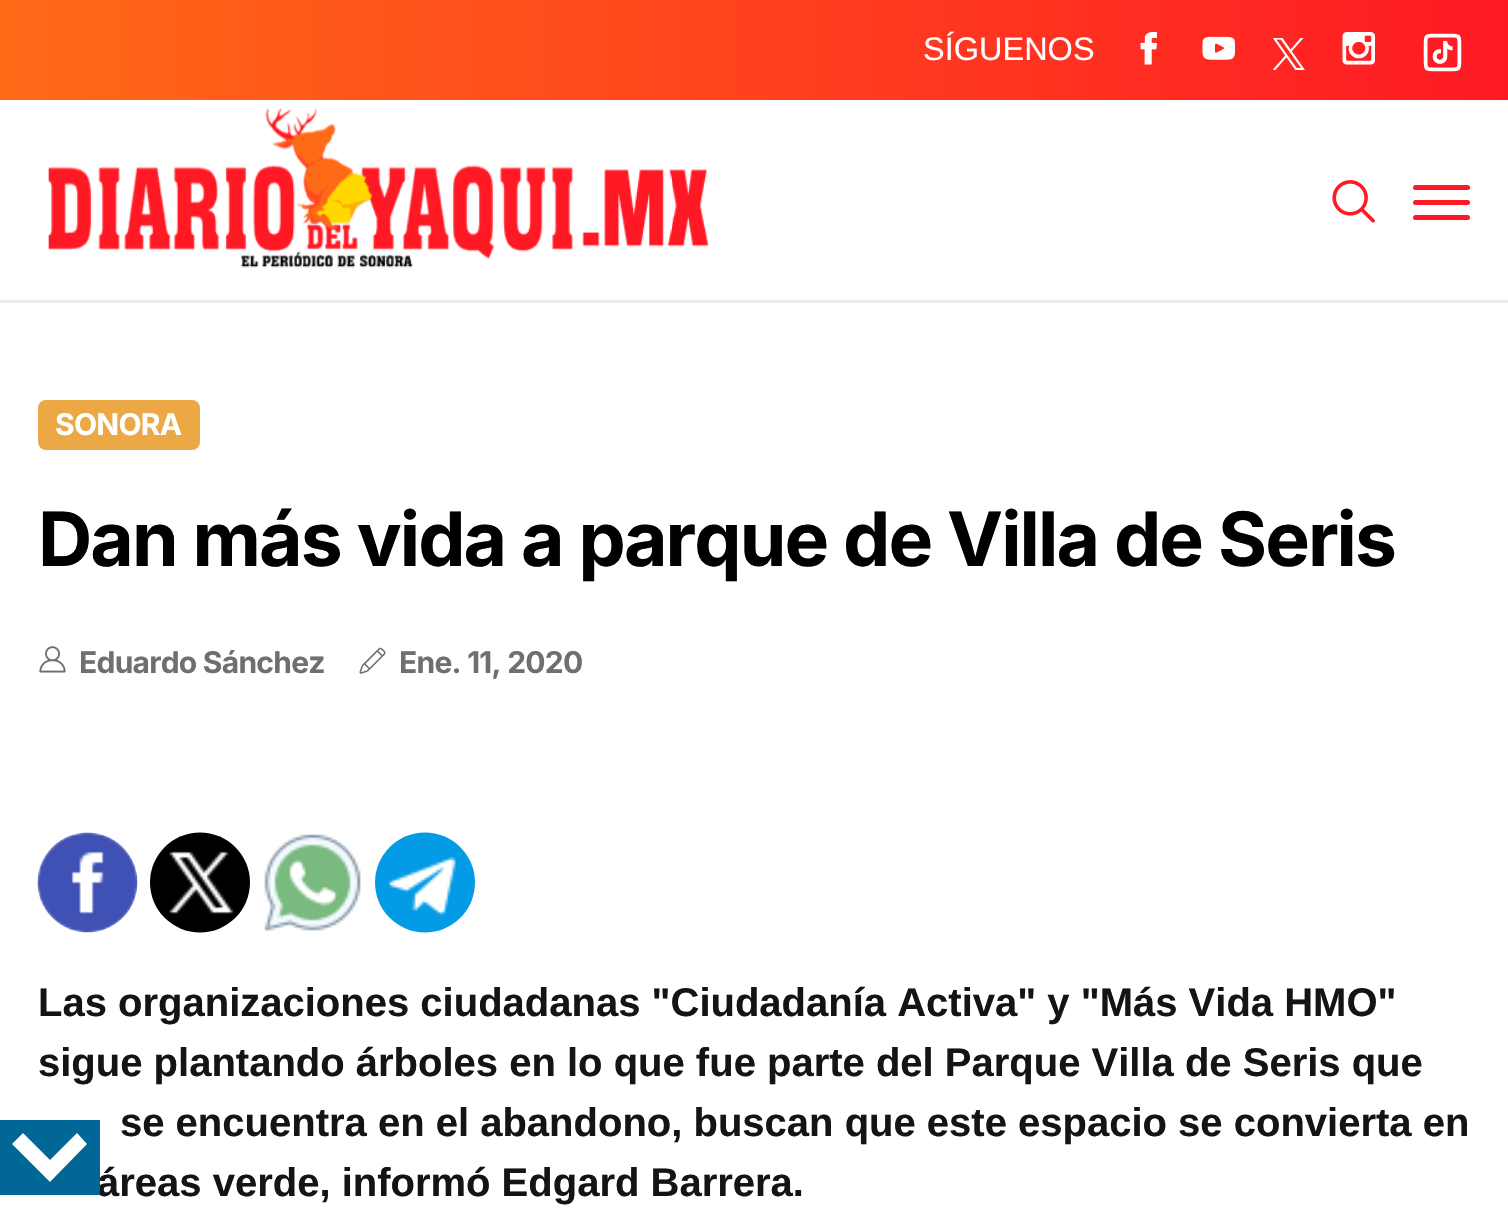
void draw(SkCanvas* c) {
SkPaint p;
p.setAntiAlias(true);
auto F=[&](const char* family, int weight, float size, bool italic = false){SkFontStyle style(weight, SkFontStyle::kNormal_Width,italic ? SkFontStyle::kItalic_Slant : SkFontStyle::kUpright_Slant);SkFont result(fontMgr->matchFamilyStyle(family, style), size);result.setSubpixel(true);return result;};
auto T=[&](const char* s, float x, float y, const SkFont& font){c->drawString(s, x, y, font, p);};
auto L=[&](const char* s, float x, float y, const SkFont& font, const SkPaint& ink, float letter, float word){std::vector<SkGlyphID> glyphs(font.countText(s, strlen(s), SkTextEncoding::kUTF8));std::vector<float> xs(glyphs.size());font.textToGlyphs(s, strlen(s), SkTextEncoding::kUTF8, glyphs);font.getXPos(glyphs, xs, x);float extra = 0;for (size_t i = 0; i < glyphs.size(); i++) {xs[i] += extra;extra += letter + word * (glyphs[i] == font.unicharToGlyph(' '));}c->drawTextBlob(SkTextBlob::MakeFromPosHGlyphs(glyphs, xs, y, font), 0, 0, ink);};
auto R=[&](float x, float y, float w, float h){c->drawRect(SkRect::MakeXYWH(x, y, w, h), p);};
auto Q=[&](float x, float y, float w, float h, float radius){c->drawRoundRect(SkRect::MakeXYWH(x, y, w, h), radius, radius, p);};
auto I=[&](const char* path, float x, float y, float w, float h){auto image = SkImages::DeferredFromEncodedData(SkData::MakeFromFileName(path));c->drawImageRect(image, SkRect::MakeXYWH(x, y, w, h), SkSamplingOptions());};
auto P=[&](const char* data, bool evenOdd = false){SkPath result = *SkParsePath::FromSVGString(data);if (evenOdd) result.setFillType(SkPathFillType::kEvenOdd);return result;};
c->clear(0xffffffff);
{
const SkColor colors[] = {0xffff6a17,0xffff1924};
const float stops[] = {0,1};
const SkPoint ends[] = {{0,50}, {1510,50}};
p.setShader(SkGradientShader::MakeLinear(ends, colors, stops, 2, SkTileMode::kClamp));
p.setAlpha(255);
}
R(0,0,1508,100);
auto f1 = F("Arimo",400,32.5);
p.setShader(nullptr);
p.setColor(0xffffffff);
T("SÍGUENOS",923,60,f1);
I("1.png",1140,32,17,33);
I("2.png",1202,36,33,24);
I("3.png",1273,38,32,32);
I("4.png",1342,32,33,33);
I("5.png",1423,33,39,39);
p.setColor(0xffebebeb);
R(0,300,1508,3);
I("6.png",48,108,661,160);
I("7.png",1332,180,43,43);
p.setColor(0xffff1924);
Q(1413,185,57,5,2.5);
Q(1413,200,57,5,2.5);
Q(1413,215,57,5,2.5);
p.setColor(0xffeba845);
Q(38,400,162,50,8);
auto f2 = F("Inter",700,30);
p.setColor(0xffffffff);
L("SONORA",55,435,f2,p,-.75,0);
auto f3 = F("Inter",700,75);
p.setColor(0xff000000);
L("Dan más vida a parque de Villa de Seris",38,566,f3,p,-1.9,0);
I("8.png",39,646,27,27);
p.setColor(0xff6f6f6f);
L("Eduardo Sánchez",79,673,f2,p,-.75,0);
I("9.png",359,647,27,27);
L("Ene. 11, 2020",399,673,f2,p,-.75,0);
I("10.png",37,832,101,101);
I("11.png",149,832,101,101);
I("12.png",264,834,97,98);
I("13.png",374,832,101,101);
auto f4 = F("Arimo",700,40);
p.setColor(0xff121416);
T("Las organizaciones ciudadanas \"Ciudadanía Activa\" y \"Más Vida HMO\"",38,1016,f4);
T("sigue plantando árboles en lo que fue parte del Parque Villa de Seris que",38,1076,f4);
T("se encuentra en el abandono, buscan que este espacio se convierta en",120,1136,f4);
T("áreas verde, informó Edgard Barrera.",97,1196,f4);
p.setColor(0xff006797);
R(0,1120,100,75);
p.setColor(0xffffffff);
c->drawPath(P("M87 1144l-10-11l-27 27l-27-27l-11 11l38 38z"),p);
}
